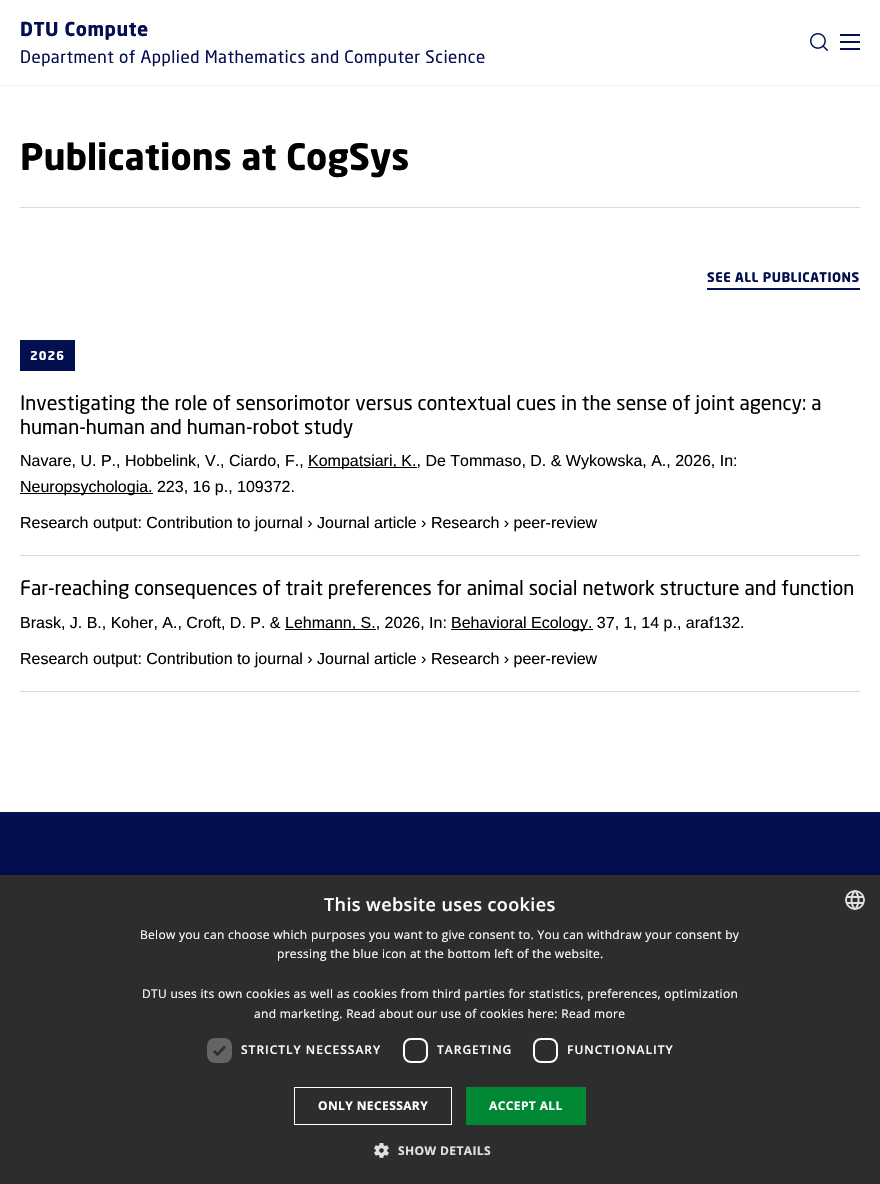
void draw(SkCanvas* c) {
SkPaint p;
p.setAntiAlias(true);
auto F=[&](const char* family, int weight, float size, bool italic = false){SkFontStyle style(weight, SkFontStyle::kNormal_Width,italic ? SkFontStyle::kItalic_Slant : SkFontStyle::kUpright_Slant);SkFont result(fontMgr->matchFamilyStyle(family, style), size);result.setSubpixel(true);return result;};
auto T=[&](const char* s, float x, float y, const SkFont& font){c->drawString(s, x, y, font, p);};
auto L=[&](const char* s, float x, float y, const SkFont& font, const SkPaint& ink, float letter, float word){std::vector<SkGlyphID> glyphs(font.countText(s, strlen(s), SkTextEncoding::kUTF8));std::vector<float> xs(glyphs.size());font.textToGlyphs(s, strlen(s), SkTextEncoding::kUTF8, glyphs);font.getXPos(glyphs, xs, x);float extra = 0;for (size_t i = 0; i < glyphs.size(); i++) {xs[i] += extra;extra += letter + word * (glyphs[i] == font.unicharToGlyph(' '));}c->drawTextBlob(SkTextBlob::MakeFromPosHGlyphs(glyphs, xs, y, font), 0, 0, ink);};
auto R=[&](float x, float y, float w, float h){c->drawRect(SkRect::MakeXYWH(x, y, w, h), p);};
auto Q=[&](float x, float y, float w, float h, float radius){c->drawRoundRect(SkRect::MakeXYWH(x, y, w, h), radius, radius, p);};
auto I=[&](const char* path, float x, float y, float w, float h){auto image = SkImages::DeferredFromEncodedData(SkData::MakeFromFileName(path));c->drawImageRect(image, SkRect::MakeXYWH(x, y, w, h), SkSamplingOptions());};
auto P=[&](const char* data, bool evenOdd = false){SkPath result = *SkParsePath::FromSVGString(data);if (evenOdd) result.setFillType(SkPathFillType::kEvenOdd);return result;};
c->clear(0xffffffff);
p.setColor(0xfff1f1f1);
R(0,85,880,1);
auto f1 = F("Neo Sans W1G",700,19);
p.setColor(0xff030f4f);
L("DTU Compute",20,36,f1,p,.5,0);
auto f2 = F("Neo Sans W1G",400,17);
L("Department of Applied Mathematics and Computer Science",20,63,f2,p,.5,0);
I("1.png",810,33,18,18);
R(840,34,20,2);
R(840,41,20,2);
R(840,48,20,2);
p.setColor(0xffdadada);
R(20,207,840,1);
auto f3 = F("Neo Sans W1G",700,36);
p.setColor(0xff000000);
T("Publications at CogSys",20,170,f3);
auto f4 = F("Neo Sans W1G",700,13);
p.setColor(0xff030f4f);
L("SEE ALL PUBLICATIONS",707,282,f4,p,.5,0);
R(707,288,153,2);
R(20,340,55,31);
auto f5 = F("Neo Sans W1G",700,12);
p.setColor(0xffffffff);
L("2026",30,360,f5,p,1,0);
p.setColor(0xffdadada);
R(20,555,840,1);
auto f6 = F("Neo Sans W1G",400,19.8);
p.setColor(0xff000000);
T("Investigating the role of sensorimotor versus contextual cues in the sense of joint agency: a",20,410,f6);
T("human-human and human-robot study",20,434,f6);
auto f7 = F("Liberation Sans",400,16);
T("Navare, U. P., Hobbelink, V., Ciardo, F.,",20,466,f7);
R(308,467,109,1);
T("Kompatsiari, K., De Tommaso, D. & Wykowska, A., 2026, In:",308,466,f7);
R(20,493,133,1);
T("Neuropsychologia. 223, 16 p., 109372.",20,492,f7);
T("Research output: Contribution to journal › Journal article › Research › peer-review",20,528,f7);
p.setColor(0xffdadada);
R(20,691,840,1);
p.setColor(0xff000000);
T("Far-reaching consequences of trait preferences for animal social network structure and function",20,595,f6);
T("Brask, J. B., Koher, A., Croft, D. P. &",20,628,f7);
R(285,629,91,1);
T("Lehmann, S., 2026, In:",285,628,f7);
R(451,629,142,1);
T("Behavioral Ecology. 37, 1, 14 p., araf132.",451,628,f7);
T("Research output: Contribution to journal › Journal article › Research › peer-review",20,664,f7);
p.setColor(0xff030f4f);
R(0,812,880,63);
p.setColor(0x59000000);
p.setMaskFilter(SkMaskFilter::MakeBlur(kNormal_SkBlurStyle, 4));
c->drawRect(SkRect::MakeXYWH(1,877,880,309),p);
p.setMaskFilter(nullptr);
p.setColor(0xff2d2d2d);
R(0,875,880,309);
auto f8 = F("Open Sans",600,18);
p.setColor(0xffffffff);
L("This website uses cookies",324,911,f8,p,.4,0);
I("2.png",845,890,20,20);
auto f9 = F("Open Sans",400,12);
L("Below you can choose which purposes you want to give consent to. You can withdraw your consent by",140,939,f9,p,.3,0);
L("pressing the blue icon at the bottom left of the website.",277,958,f9,p,.3,0);
L("DTU uses its own cookies as well as cookies from third parties for statistics, preferences, optimization",142,998,f9,p,.3,0);
L("and marketing. Read about our use of cookies here: Read more",254,1018,f9,p,.3,0);
p.setColor(0xff646464);
Q(207,1038,25,25,8);
p.setStroke(true);
p.setStrokeWidth(2.6);
p.setColor(0xff2d2d2d);
c->drawPath(P("M214 1051l3.5 3.5l7.5-8"),p);
auto f10 = F("Open Sans",600,12);
p.setStroke(false);
p.setColor(0xffffffff);
L("STRICTLY NECESSARY",241,1054,f10,p,1,0);
p.setStroke(true);
p.setStrokeWidth(2);
c->drawRoundRect(SkRect::MakeXYWH(404,1039,23,23),7,7,p);
p.setStroke(false);
L("TARGETING",437,1054,f10,p,1,0);
p.setStroke(true);
c->drawRoundRect(SkRect::MakeXYWH(534,1039,23,23),7,7,p);
p.setStroke(false);
L("FUNCTIONALITY",567,1054,f10,p,1,0);
p.setStroke(true);
p.setStrokeWidth(1);
c->drawRect(SkRect::MakeXYWH(294.5,1087.5,157,37),p);
auto f11 = F("Open Sans",700,12);
p.setStroke(false);
L("ONLY NECESSARY",318,1110,f11,p,.4,0);
p.setColor(0xff008835);
R(466,1087,120,38);
p.setColor(0xffffffff);
L("ACCEPT ALL",489,1110,f11,p,.4,0);
I("3.png",374,1143,15,15);
p.setColor(0xffe0e0e0);
L("SHOW DETAILS",398,1155,f11,p,.4,0);
}
